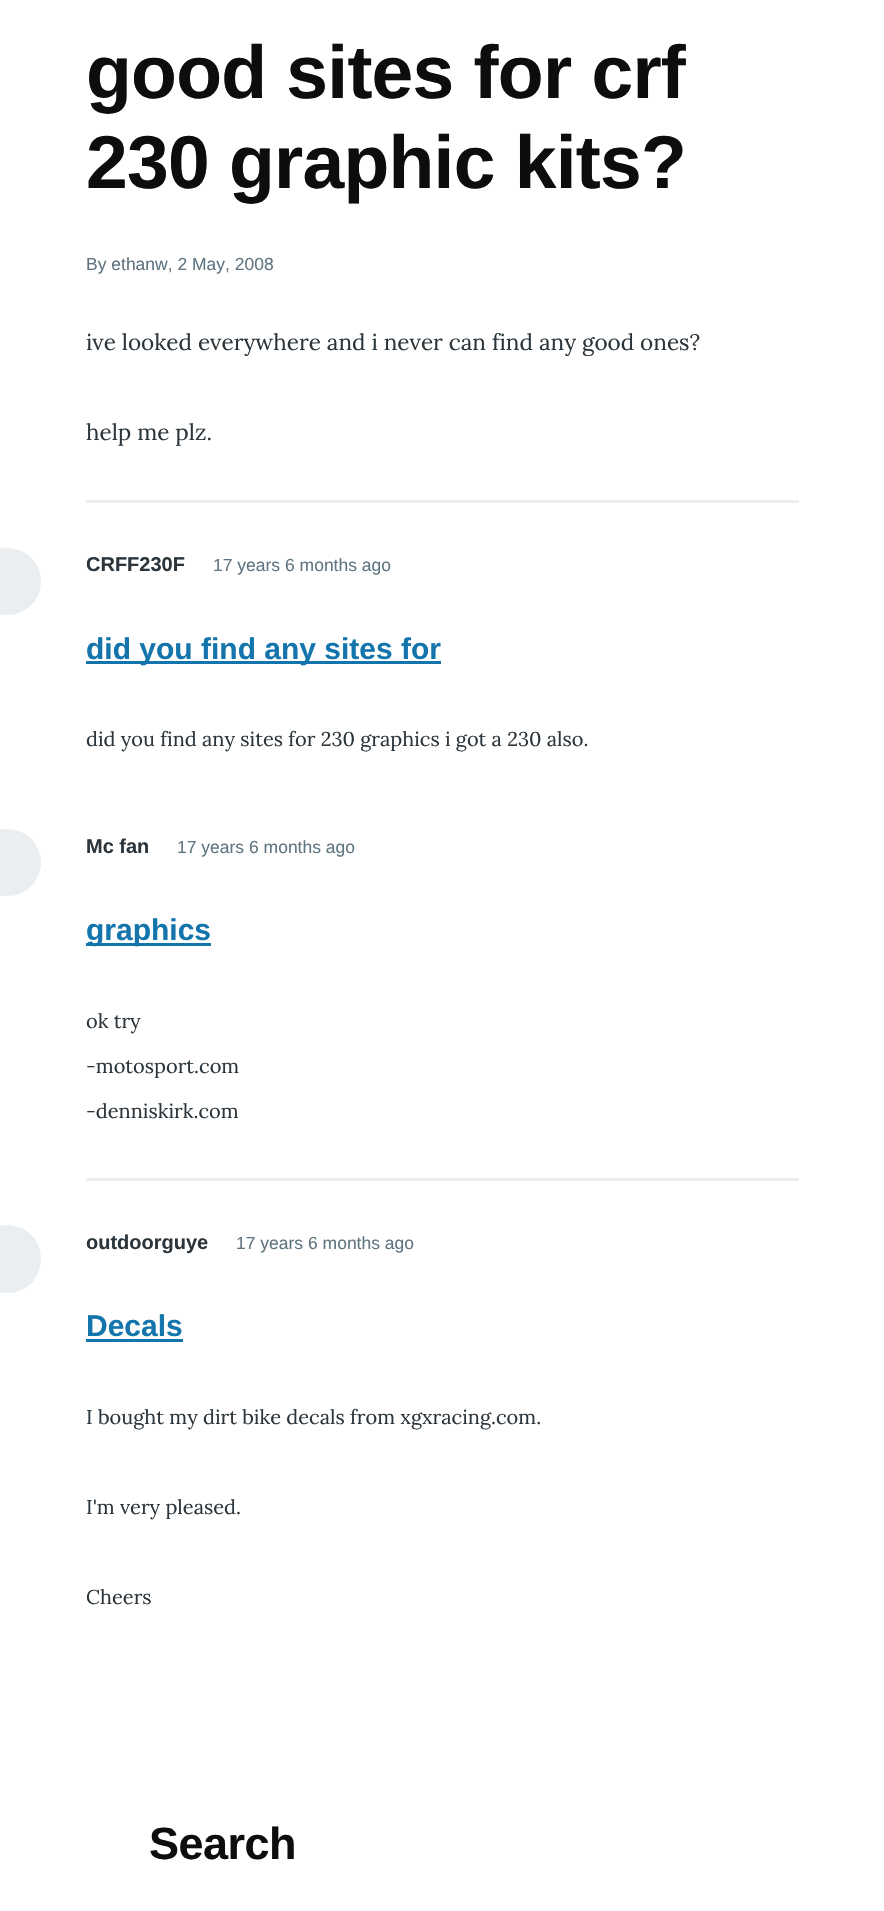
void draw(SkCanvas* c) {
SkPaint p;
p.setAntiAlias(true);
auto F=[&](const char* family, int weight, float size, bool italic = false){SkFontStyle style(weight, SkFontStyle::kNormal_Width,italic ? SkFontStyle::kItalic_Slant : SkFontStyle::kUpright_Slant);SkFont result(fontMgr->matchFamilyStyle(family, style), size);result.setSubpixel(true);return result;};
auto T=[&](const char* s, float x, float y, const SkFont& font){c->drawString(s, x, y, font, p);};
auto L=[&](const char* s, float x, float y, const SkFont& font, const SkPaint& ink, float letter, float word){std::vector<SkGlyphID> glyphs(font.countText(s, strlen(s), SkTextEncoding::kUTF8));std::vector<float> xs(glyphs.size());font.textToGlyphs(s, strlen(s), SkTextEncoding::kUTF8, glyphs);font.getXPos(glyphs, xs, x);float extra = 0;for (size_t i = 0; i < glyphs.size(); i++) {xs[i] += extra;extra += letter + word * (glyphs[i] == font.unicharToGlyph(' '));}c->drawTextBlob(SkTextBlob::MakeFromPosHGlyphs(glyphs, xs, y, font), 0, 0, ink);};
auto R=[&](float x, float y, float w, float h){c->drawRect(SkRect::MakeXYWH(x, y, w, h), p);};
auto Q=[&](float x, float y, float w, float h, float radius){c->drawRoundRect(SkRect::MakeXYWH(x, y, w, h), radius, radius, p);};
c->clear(0xffffffff);
auto f1 = F("Liberation Sans",700,75);
p.setColor(0xff0b0d0f);
L("good sites for crf",86,98,f1,p,-.75,0);
L("230 graphic kits?",86,188,f1,p,-.75,0);
auto f2 = F("Liberation Sans",400,17.5);
p.setColor(0xff5f7581);
T("By ethanw, 2 May, 2008",86,270,f2);
auto f3 = F("Lora",400,22.5);
p.setColor(0xff2b353b);
T("ive looked everywhere and i never can find any good ones?",86,350,f3);
T("help me plz.",86,440,f3);
p.setColor(0xffeaeef0);
R(86,500,713,3);
c->drawCircle(7.5,581.5,33.5,p);
auto f4 = F("Liberation Sans",700,20);
p.setColor(0xff2b353b);
T("CRFF230F",86,571,f4);
p.setColor(0xff5f7581);
T("17 years 6 months ago",213,571,f2);
p.setColor(0xff1475ad);
R(86,661,355,3);
auto f5 = F("Liberation Sans",700,30);
T("did you find any sites for",86,659,f5);
auto f6 = F("Lora",400,20);
p.setColor(0xff2b353b);
T("did you find any sites for 230 graphics i got a 230 also.",86,746,f6);
p.setColor(0xffeaeef0);
c->drawCircle(7.5,862.5,33.5,p);
p.setColor(0xff2b353b);
T("Mc fan",86,853,f4);
p.setColor(0xff5f7581);
T("17 years 6 months ago",177,853,f2);
p.setColor(0xff1475ad);
R(86,943,125,3);
T("graphics",86,940,f5);
p.setColor(0xff2b353b);
T("ok try",86,1028,f6);
T("-motosport.com",86,1073,f6);
T("-denniskirk.com",86,1118,f6);
p.setColor(0xffeaeef0);
R(86,1178,713,3);
Q(-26,1225,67,68,33.5);
p.setColor(0xff2b353b);
T("outdoorguye",86,1249,f4);
p.setColor(0xff5f7581);
T("17 years 6 months ago",236,1249,f2);
p.setColor(0xff1475ad);
T("Decals",86,1336,f5);
R(86,1339,97,3);
p.setColor(0xff2b353b);
T("I bought my dirt bike decals from xgxracing.com.",86,1424,f6);
T("I'm very pleased.",86,1514,f6);
T("Cheers",86,1604,f6);
auto f7 = F("Liberation Sans",700,45);
p.setColor(0xff0b0d0f);
L("Search",149,1859,f7,p,-.5,0);
}
